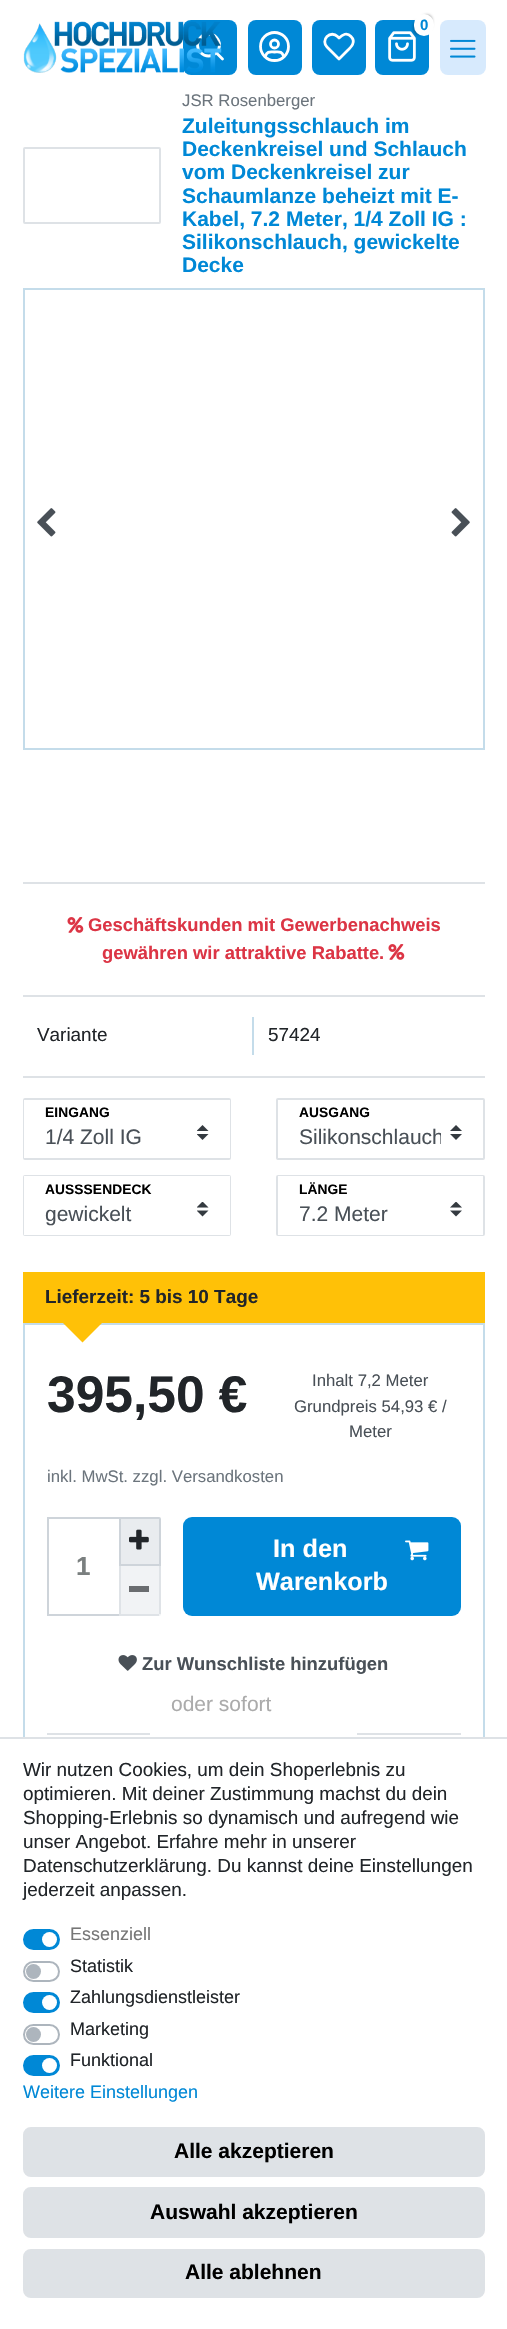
void draw(SkCanvas* c) {
SkPaint p;
p.setAntiAlias(true);
auto F=[&](const char* family, int weight, float size, bool italic = false){SkFontStyle style(weight, SkFontStyle::kNormal_Width,italic ? SkFontStyle::kItalic_Slant : SkFontStyle::kUpright_Slant);SkFont result(fontMgr->matchFamilyStyle(family, style), size);result.setSubpixel(true);return result;};
auto T=[&](const char* s, float x, float y, const SkFont& font){c->drawString(s, x, y, font, p);};
auto L=[&](const char* s, float x, float y, const SkFont& font, const SkPaint& ink, float letter, float word){std::vector<SkGlyphID> glyphs(font.countText(s, strlen(s), SkTextEncoding::kUTF8));std::vector<float> xs(glyphs.size());font.textToGlyphs(s, strlen(s), SkTextEncoding::kUTF8, glyphs);font.getXPos(glyphs, xs, x);float extra = 0;for (size_t i = 0; i < glyphs.size(); i++) {xs[i] += extra;extra += letter + word * (glyphs[i] == font.unicharToGlyph(' '));}c->drawTextBlob(SkTextBlob::MakeFromPosHGlyphs(glyphs, xs, y, font), 0, 0, ink);};
auto R=[&](float x, float y, float w, float h){c->drawRect(SkRect::MakeXYWH(x, y, w, h), p);};
auto Q=[&](float x, float y, float w, float h, float radius){c->drawRoundRect(SkRect::MakeXYWH(x, y, w, h), radius, radius, p);};
auto I=[&](const char* path, float x, float y, float w, float h){auto image = SkImages::DeferredFromEncodedData(SkData::MakeFromFileName(path));c->drawImageRect(image, SkRect::MakeXYWH(x, y, w, h), SkSamplingOptions());};
auto P=[&](const char* data, bool evenOdd = false){SkPath result = *SkParsePath::FromSVGString(data);if (evenOdd) result.setFillType(SkPathFillType::kEvenOdd);return result;};
c->clear(0xffffffff);
p.setColor(0xff0088d6);
Q(183,20,54,55,8);
p.setStroke(true);
p.setStrokeWidth(2.8);
p.setColor(0xffffffff);
c->drawCircle(208.5,45,11,p);
p.setStrokeCap(SkPaint::kRound_Cap);
p.setStrokeJoin(SkPaint::kRound_Join);
c->drawPath(P("M222.5 59l-6-6"),p);
I("1.png",23,21,199,52);
p.setStroke(false);
p.setColor(0xff0088d6);
Q(248,20,54,55,8);
p.setStroke(true);
p.setStrokeCap(SkPaint::kButt_Cap);
p.setStrokeJoin(SkPaint::kMiter_Join);
p.setColor(0xffffffff);
c->drawCircle(274.5,44,4,p);
p.setStrokeCap(SkPaint::kRound_Cap);
p.setStrokeJoin(SkPaint::kRound_Join);
c->drawPath(P("M265.5 56c1.5-5 4.5-4 9-4c4.5 0 7.5-1 9 4"),p);
p.setStrokeCap(SkPaint::kButt_Cap);
p.setStrokeJoin(SkPaint::kMiter_Join);
c->drawCircle(274.5,46.5,14,p);
p.setStroke(false);
p.setColor(0xff0088d6);
Q(312,20,54,55,8);
p.setStroke(true);
p.setStrokeCap(SkPaint::kRound_Cap);
p.setStrokeJoin(SkPaint::kRound_Join);
p.setColor(0xffffffff);
c->drawPath(P("M351 36.5c-4-4.5-8.5-2-12 1.5l-1.5-1.5c-3-3-7.5-3-10.5 0c-3 3-3 7.5 0 10.5l12 12l7-7c4-4 11-9.5 5-15.5z"),p);
p.setStroke(false);
p.setColor(0xff0088d6);
Q(375,20,54,55,8);
I("2.png",388,31,28,31);
p.setColor(0x40000000);
p.setMaskFilter(SkMaskFilter::MakeBlur(kNormal_SkBlurStyle, 1.5));
c->drawRoundRect(SkRect::MakeXYWH(413,21,10,14),5,5,p);
p.setMaskFilter(nullptr);
p.setColor(0x80000000);
p.setMaskFilter(SkMaskFilter::MakeBlur(kNormal_SkBlurStyle, 1.5));
c->drawRoundRect(SkRect::MakeXYWH(422,15,10,14),5,5,p);
p.setMaskFilter(nullptr);
p.setColor(0xffffffff);
Q(414,14,20,22,10);
auto f1 = F("Liberation Sans",700,15);
p.setColor(0xff0088d6);
T("0",420,30,f1);
p.setColor(0xffd7eafd);
Q(440,20,46,55,8);
I("3.png",450,39,26,19);
p.setStroke(true);
p.setStrokeWidth(2);
p.setStrokeCap(SkPaint::kButt_Cap);
p.setStrokeJoin(SkPaint::kMiter_Join);
p.setColor(0xffdee2e6);
c->drawRoundRect(SkRect::MakeXYWH(24,148,136,75),1,1,p);
auto f2 = F("Liberation Sans",400,16.75);
p.setStroke(false);
p.setColor(0xff6c757d);
T("JSR Rosenberger",182,106,f2);
auto f3 = F("Liberation Sans",700,21);
p.setColor(0xff0088d6);
T("Zuleitungsschlauch im",182,133,f3);
T("Deckenkreisel und Schlauch",182,156,f3);
T("vom Deckenkreisel zur",182,179,f3);
T("Schaumlanze beheizt mit E-",182,203,f3);
T("Kabel, 7.2 Meter, 1/4 Zoll IG :",182,226,f3);
T("Silikonschlauch, gewickelte",182,249,f3);
T("Decke",182,272,f3);
p.setStroke(true);
p.setColor(0xffc4dcea);
c->drawRect(SkRect::MakeXYWH(24,289,460,460),p);
I("4.png",37,508,19,29);
I("5.png",451,508,19,29);
p.setStroke(false);
p.setColor(0xffdee2e6);
R(23,882,462,2);
I("6.png",67,917,17,16);
auto f4 = F("Liberation Sans",700,18.4);
p.setColor(0xffdc3545);
T("Geschäftskunden mit Gewerbenachweis",88,931,f4);
T("gewähren wir attraktive Rabatte.",102,959,f4);
I("6.png",388,944,17,16);
p.setColor(0xffdee2e6);
R(23,995,462,2);
p.setColor(0xffc4dcea);
R(252,1017,2,38);
auto f5 = F("Liberation Sans",400,18.9);
p.setColor(0xff212529);
T("Variante",37,1041,f5);
T("57424",268,1041,f5);
p.setColor(0xffdee2e6);
R(23,1076,462,2);
p.setStroke(true);
c->drawRoundRect(SkRect::MakeXYWH(24,1099,206,60),1,1,p);
p.setStroke(false);
p.setColor(0xffffffff);
R(24,1100,206,58);
auto f6 = F("Liberation Sans",700,13.75);
p.setColor(0xff000000);
L("EINGANG",45,1117,f6,p,.1,0);
I("7.png",197,1125,12,15);
auto f7 = F("Liberation Sans",400,21);
p.setColor(0xff495057);
T("1/4 Zoll IG",45,1144,f7);
p.setStroke(true);
p.setColor(0xffdee2e6);
c->drawRoundRect(SkRect::MakeXYWH(277,1099,207,60),1,1,p);
p.setStroke(false);
p.setColor(0xff000000);
L("AUSGANG",299,1117,f6,p,.1,0);
I("8.png",450,1125,12,15);
c->save();
c->clipRect(SkRect::MakeXYWH(299,1125,142,26));
p.setColor(0xff495057);
T("Silikonschlauch",299,1144,f7);
c->restore();
p.setStroke(true);
p.setColor(0xffdee2e6);
c->drawRoundRect(SkRect::MakeXYWH(24,1176,206,59),1,1,p);
p.setStroke(false);
p.setColor(0xffffffff);
R(24,1176,206,59);
p.setColor(0xff000000);
L("AUSSSENDECK",45,1194,f6,p,.1,0);
I("9.png",197,1202,12,15);
p.setColor(0xff495057);
T("gewickelt",45,1221,f7);
p.setStroke(true);
p.setColor(0xffdee2e6);
c->drawRoundRect(SkRect::MakeXYWH(277,1176,207,59),1,1,p);
p.setStroke(false);
p.setColor(0xffffffff);
R(278,1176,205,59);
p.setColor(0xff000000);
L("LÄNGE",299,1194,f6,p,.1,0);
I("10.png",450,1202,12,15);
p.setColor(0xff495057);
T("7.2 Meter",299,1221,f7);
p.setColor(0xffffc107);
R(23,1272,462,51);
auto f8 = F("Liberation Sans",700,18.9);
p.setColor(0xff212529);
T("Lieferzeit: 5 bis 10 Tage",45,1303,f8);
p.setStroke(true);
p.setColor(0xffc4dcea);
c->drawRect(SkRect::MakeXYWH(24,1324,460,528),p);
p.setStroke(false);
p.setColor(0xffffc107);
c->drawPath(P("M63 1323h39l-19.5 19.5z"),p);
auto f9 = F("Liberation Sans",700,51.5);
p.setColor(0xff212529);
T("395,50 €",47,1412,f9);
p.setColor(0xff495057);
T("Inhalt 7,2 Meter",312,1386,f2);
T("Grundpreis 54,93 € /",294,1412,f2);
T("Meter",349,1437,f2);
p.setColor(0xff6c757d);
T("inkl. MwSt. zzgl. Versandkosten",47,1482,f2);
p.setColor(0xffced4da);
R(47,1517,72,2);
R(47,1614,72,2);
R(47,1517,2,99);
auto f10 = F("Liberation Sans",700,26);
p.setColor(0xff7a7f7f);
T("1",76,1575,f10);
p.setColor(0xffe9ecef);
c->drawPath(P("M120 1518h39c.5 0 1 .5 1 1v46h-40z"),p);
p.setStroke(true);
p.setColor(0xffced4da);
c->drawPath(P("M120 1518h39c.5 0 1 .5 1 1v46h-40z"),p);
I("11.png",129,1529,20,21);
p.setStroke(false);
p.setColor(0xfff1f3f5);
c->drawPath(P("M119 1566h42v48c0 1-1 2-2 2h-40z"),p);
p.setColor(0xffdfe3e7);
R(159,1566,2,48);
R(119,1614,40,2);
R(119,1566,2,50);
p.setColor(0xff6a6d70);
R(129,1586,20,6);
p.setColor(0xff0088d6);
Q(183,1517,278,99,9);
auto f11 = F("Liberation Sans",700,25.25);
p.setColor(0xffffffff);
T("In den",273,1557,f11);
I("12.png",405,1540,24,21);
T("Warenkorb",256,1590,f11);
I("13.png",118,1655,19,16);
p.setColor(0xff495057);
T("Zur Wunschliste hinzufügen",142,1670,f4);
p.setColor(0xffdee2e6);
R(47,1733,414,2);
p.setColor(0xffffffff);
R(150,1733,207,2);
p.setColor(0xffababab);
T("oder sofort",171,1711,f7);
p.setColor(0xffffffff);
R(23,1739,462,114);
p.setColor(0xffdee2e6);
R(0,1737,507,2);
p.setColor(0xff212529);
T("Wir nutzen Cookies, um dein Shoperlebnis zu",23,1776,f5);
T("optimieren. Mit deiner Zustimmung machst du dein",23,1800,f5);
T("Shopping-Erlebnis so dynamisch und aufregend wie",23,1824,f5);
T("unser Angebot. Erfahre mehr in unserer",23,1848,f5);
T("Datenschutzerklärung. Du kannst deine Einstellungen",23,1872,f5);
T("jederzeit anpassen.",23,1896,f5);
p.setColor(0xff0088d6);
c->drawRoundRect(SkRect::MakeXYWH(24,1930,35,19),9.5,9.5,p);
p.setStroke(true);
c->drawRoundRect(SkRect::MakeXYWH(24,1930,35,19),9.5,9.5,p);
auto f12 = F("Liberation Sans",400,18);
p.setStroke(false);
p.setColor(0xff767676);
T("Essenziell",70,1940,f12);
p.setColor(0xffffffff);
c->drawCircle(49.5,1939.5,7.5,p);
p.setStroke(true);
p.setColor(0xffadb5bd);
c->drawRoundRect(SkRect::MakeXYWH(24,1962,35,19),9.5,9.5,p);
p.setStroke(false);
p.setColor(0xff212529);
T("Statistik",70,1972,f12);
p.setColor(0xffadb5bd);
c->drawCircle(33.5,1971.5,7.5,p);
p.setColor(0xff0088d6);
c->drawRoundRect(SkRect::MakeXYWH(24,1993,35,19),9.5,9.5,p);
p.setStroke(true);
c->drawRoundRect(SkRect::MakeXYWH(24,1993,35,19),9.5,9.5,p);
p.setStroke(false);
p.setColor(0xff212529);
T("Zahlungsdienstleister",70,2003,f12);
p.setColor(0xffffffff);
c->drawCircle(49.5,2002.5,7.5,p);
p.setStroke(true);
p.setColor(0xffadb5bd);
c->drawRoundRect(SkRect::MakeXYWH(24,2025,35,19),9.5,9.5,p);
p.setStroke(false);
p.setColor(0xff212529);
T("Marketing",70,2035,f12);
p.setColor(0xffadb5bd);
c->drawCircle(33.5,2034.5,7.5,p);
p.setColor(0xff0088d6);
c->drawRoundRect(SkRect::MakeXYWH(24,2056,35,19),9.5,9.5,p);
p.setStroke(true);
c->drawRoundRect(SkRect::MakeXYWH(24,2056,35,19),9.5,9.5,p);
p.setStroke(false);
p.setColor(0xff212529);
T("Funktional",70,2066,f12);
p.setColor(0xffffffff);
c->drawCircle(49.5,2065.5,7.5,p);
p.setColor(0xff0088d6);
T("Weitere Einstellungen",23,2098,f12);
p.setColor(0xffdee2e6);
c->drawRoundRect(SkRect::MakeXYWH(24,2128,460,48),7,7,p);
p.setStroke(true);
c->drawRoundRect(SkRect::MakeXYWH(24,2128,460,48),7,7,p);
p.setStroke(false);
p.setColor(0xff000000);
T("Alle akzeptieren",174,2158,f3);
p.setColor(0xffdee2e6);
c->drawRoundRect(SkRect::MakeXYWH(24,2188,460,49),7,7,p);
p.setStroke(true);
c->drawRoundRect(SkRect::MakeXYWH(24,2188,460,49),7,7,p);
p.setStroke(false);
p.setColor(0xff000000);
T("Auswahl akzeptieren",150,2219,f3);
p.setColor(0xffdee2e6);
c->drawRoundRect(SkRect::MakeXYWH(24,2250,460,47),7,7,p);
p.setStroke(true);
c->drawRoundRect(SkRect::MakeXYWH(24,2250,460,47),7,7,p);
p.setStroke(false);
p.setColor(0xff000000);
T("Alle ablehnen",185,2279,f3);
}
